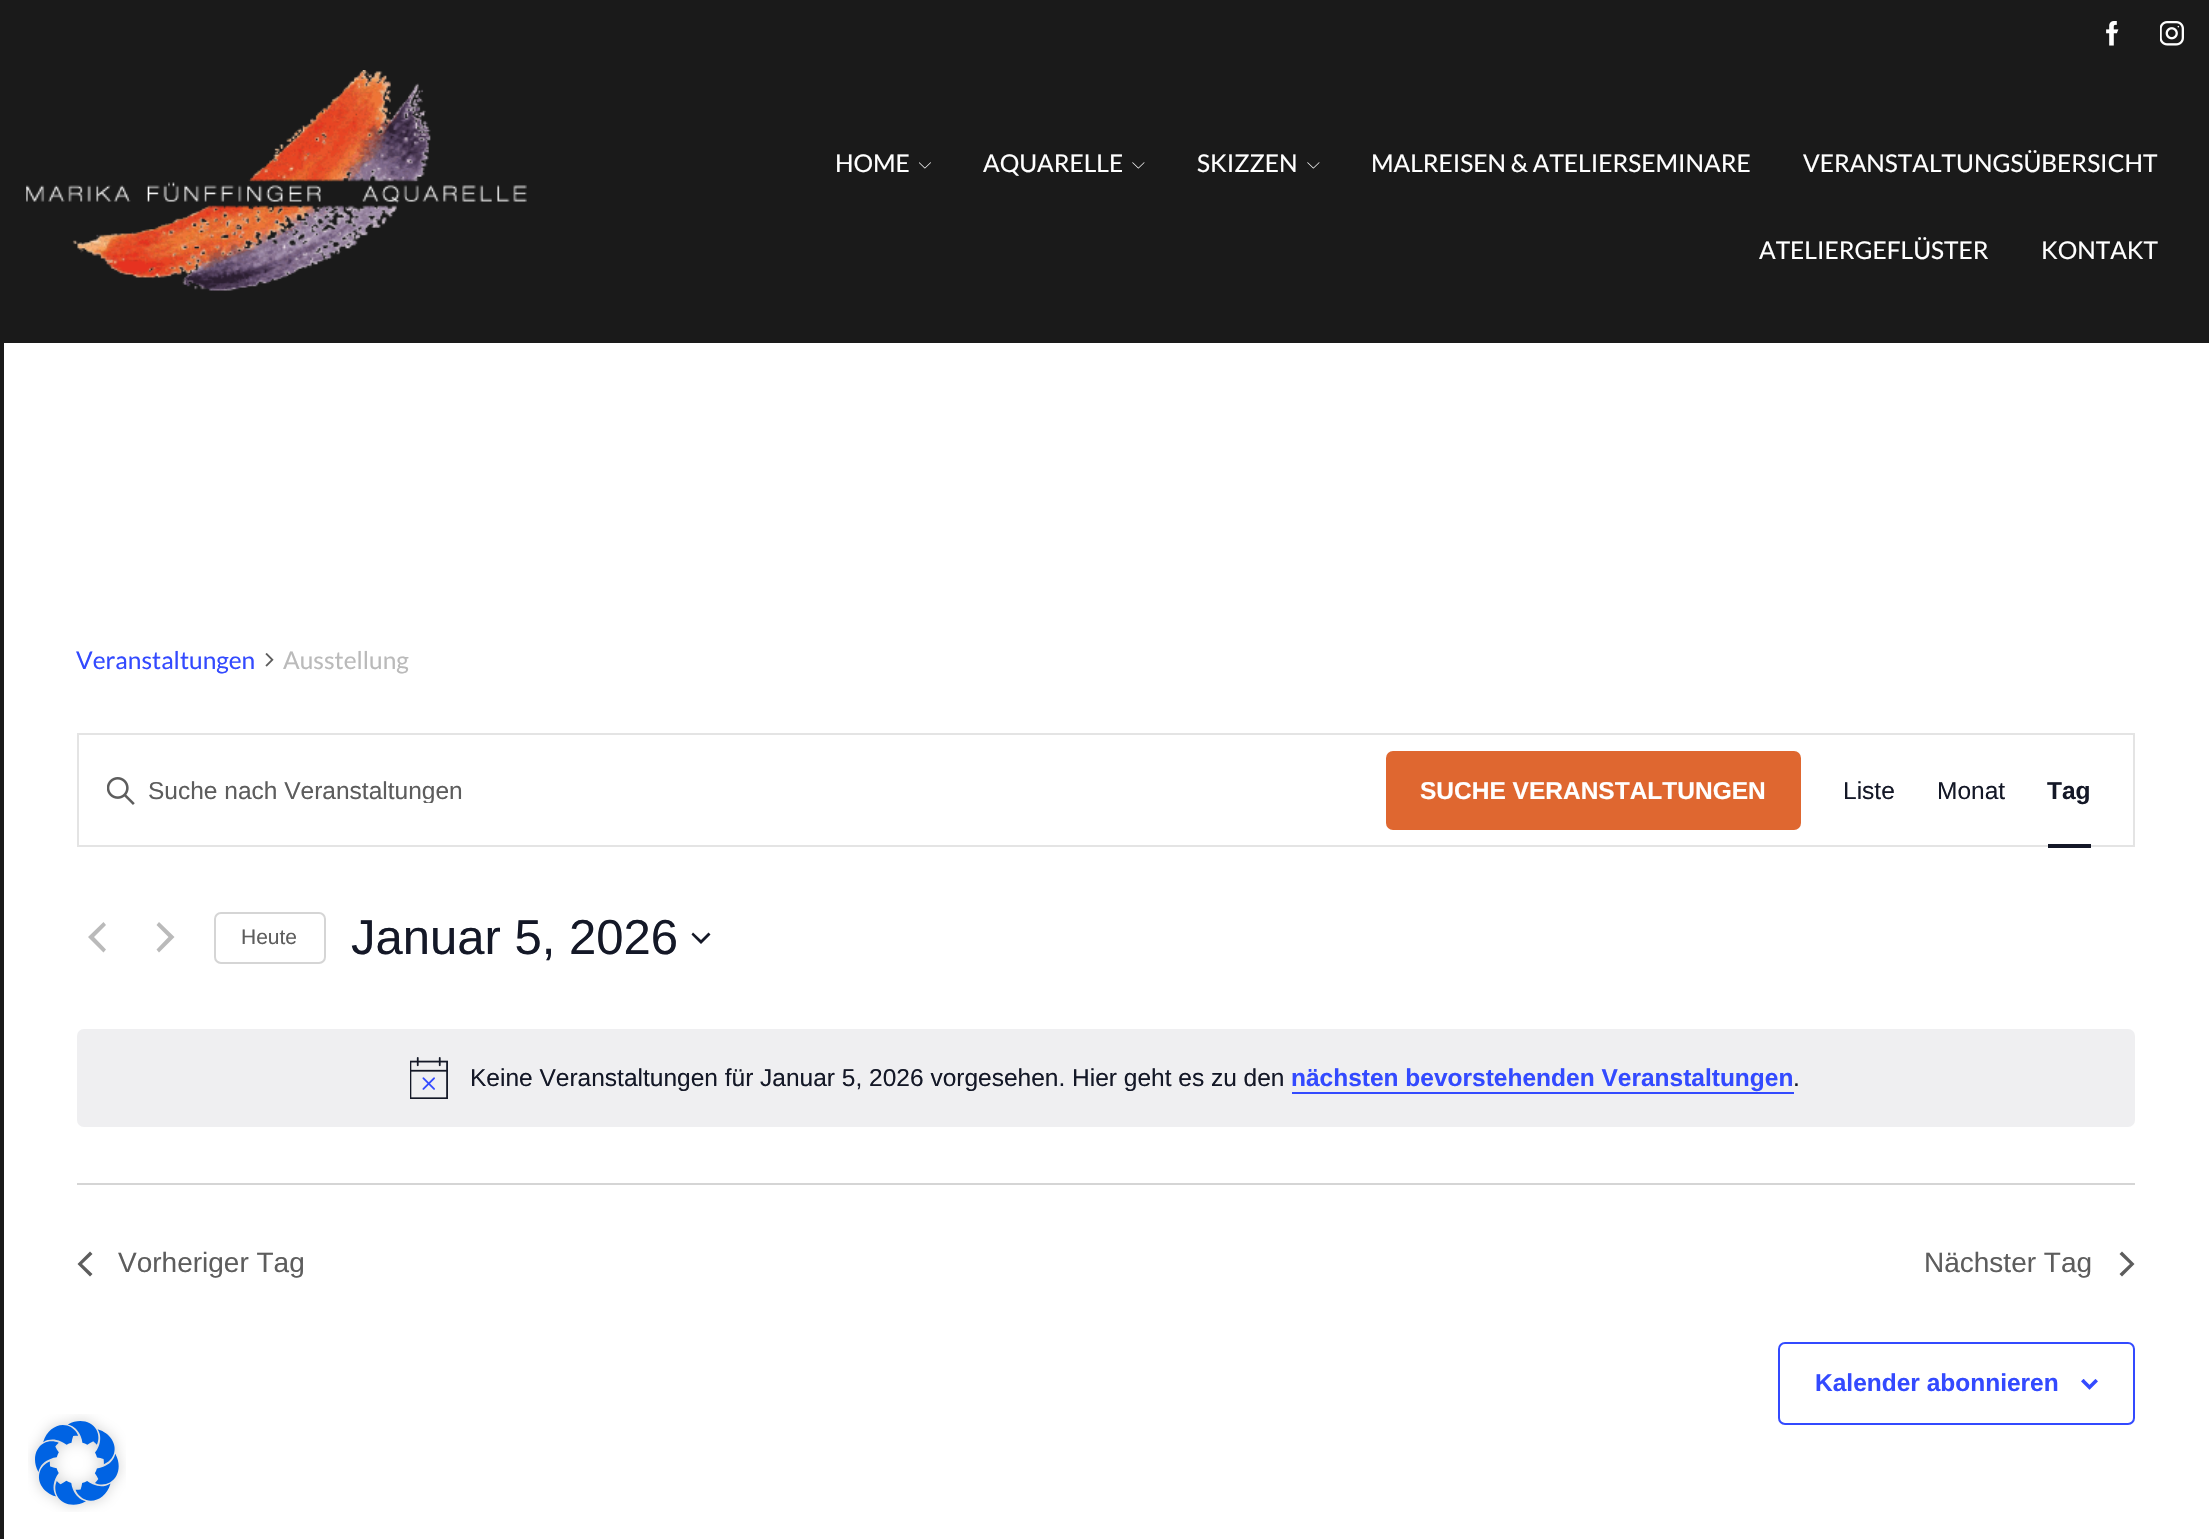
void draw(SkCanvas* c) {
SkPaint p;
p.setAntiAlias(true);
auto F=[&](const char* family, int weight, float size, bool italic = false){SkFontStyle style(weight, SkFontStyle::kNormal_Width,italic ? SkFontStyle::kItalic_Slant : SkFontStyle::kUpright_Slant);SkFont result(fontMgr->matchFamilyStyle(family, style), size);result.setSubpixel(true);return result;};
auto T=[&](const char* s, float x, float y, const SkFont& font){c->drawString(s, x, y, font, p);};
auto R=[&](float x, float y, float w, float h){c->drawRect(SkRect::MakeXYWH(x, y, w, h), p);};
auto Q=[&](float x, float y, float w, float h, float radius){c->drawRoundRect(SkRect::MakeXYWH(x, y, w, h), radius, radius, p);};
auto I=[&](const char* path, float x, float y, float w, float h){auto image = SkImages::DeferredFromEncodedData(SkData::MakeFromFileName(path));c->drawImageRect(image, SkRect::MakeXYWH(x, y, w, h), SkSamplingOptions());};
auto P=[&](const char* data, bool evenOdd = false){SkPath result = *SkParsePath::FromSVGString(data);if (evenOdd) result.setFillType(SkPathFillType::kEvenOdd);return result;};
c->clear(0xff1a1a1a);
I("1.png",2106,21,13,25);
I("2.png",2160,21,24,25);
I("3.png",26,70,501,221);
auto f1 = F("Lato",400,24.5);
p.setColor(0xffffffff);
T("HOME",835,172,f1);
I("4.png",919,162,12,7);
T("AQUARELLE",983,172,f1);
I("5.png",1132,162,13,7);
T("SKIZZEN",1197,172,f1);
I("5.png",1307,162,13,7);
T("MALREISEN & ATELIERSEMINARE",1371,172,f1);
T("VERANSTALTUNGSÜBERSICHT",1803,172,f1);
T("ATELIERGEFLÜSTER",1759,259,f1);
T("KONTAKT",2041,259,f1);
R(4,343,2205,1196);
p.setColor(0xff334aff);
T("Veranstaltungen",76,669,f1);
I("6.png",265,653,9,14);
p.setColor(0xffbababa);
T("Ausstellung",283,669,f1);
p.setStroke(true);
p.setStrokeWidth(2);
p.setColor(0xffe4e4e4);
c->drawRect(SkRect::MakeXYWH(78,734,2056,112),p);
I("7.png",107,777,28,28);
c->save();
c->clipRect(SkRect::MakeXYWH(149,775,1202,28));
auto f2 = F("Liberation Sans",400,24.5);
p.setStroke(false);
p.setColor(0xff5d5d5d);
T("Suche nach Veranstaltungen",148,799,f2);
c->restore();
p.setColor(0xffdf6730);
Q(1386,751,415,79,7);
auto f3 = F("Liberation Sans",700,24.5);
p.setColor(0xffffffff);
T("SUCHE VERANSTALTUNGEN",1420,799,f3);
p.setColor(0xff141827);
T("Liste",1843,799,f2);
T("Monat",1937,799,f2);
T("Tag",2047,799,f3);
R(2048,844,43,4);
p.setColor(0xffbababa);
c->drawPath(P("M106 949.5l-2.5 3l-15.5-15.5l15.5-15l2.5 3l-12 12z"),p);
c->drawPath(P("M156.5 925l2.5-3l15.5 15l-15.5 15.5l-2.5-3l12-12.5z"),p);
p.setStroke(true);
p.setColor(0xffd5d5d5);
c->drawRoundRect(SkRect::MakeXYWH(215,913,110,50),6,6,p);
auto f4 = F("Liberation Sans",400,21);
p.setStroke(false);
p.setColor(0xff5d5d5d);
T("Heute",241,944,f4);
auto f5 = F("Liberation Sans",400,49);
p.setColor(0xff141827);
T("Januar 5, 2026",351,954,f5);
c->drawPath(P("M693 932.5l8 7.5l7.5-7.5l2 2l-9.5 9.5l-9.5-9.5z",true),p);
p.setColor(0xffefeff1);
Q(77,1029,2058,98,7);
I("8.png",410,1057,38,42);
p.setColor(0xff141827);
T("Keine Veranstaltungen für Januar 5, 2026 vorgesehen. Hier geht es zu den",470,1086,f2);
p.setColor(0xff334aff);
T("nächsten bevorstehenden Veranstaltungen",1291,1086,f3);
R(1292,1092,502,2);
p.setColor(0xff141827);
T(".",1793,1086,f2);
p.setColor(0xffd5d5d5);
R(77,1183,2058,2);
p.setColor(0xff5d5d5d);
c->drawPath(P("M92.5 1274l-2.5 2.5l-12.5-12.5l12.5-12.5l2.5 2.5l-10.5 10z"),p);
auto f6 = F("Liberation Sans",400,28);
T("Vorheriger Tag",118,1272,f6);
T("Nächster Tag",1924,1272,f6);
c->drawPath(P("M2119.5 1254l2.5-2.5l12.5 12.5l-12.5 12.5l-2.5-2.5l10.5-10z"),p);
p.setStroke(true);
p.setColor(0xff334aff);
c->drawRoundRect(SkRect::MakeXYWH(1779,1343,355,81),6,6,p);
p.setStroke(false);
T("Kalender abonnieren",1815,1391,f3);
I("9.png",2081,1379,17,11);
I("10.png",28,1414,98,98);
}
